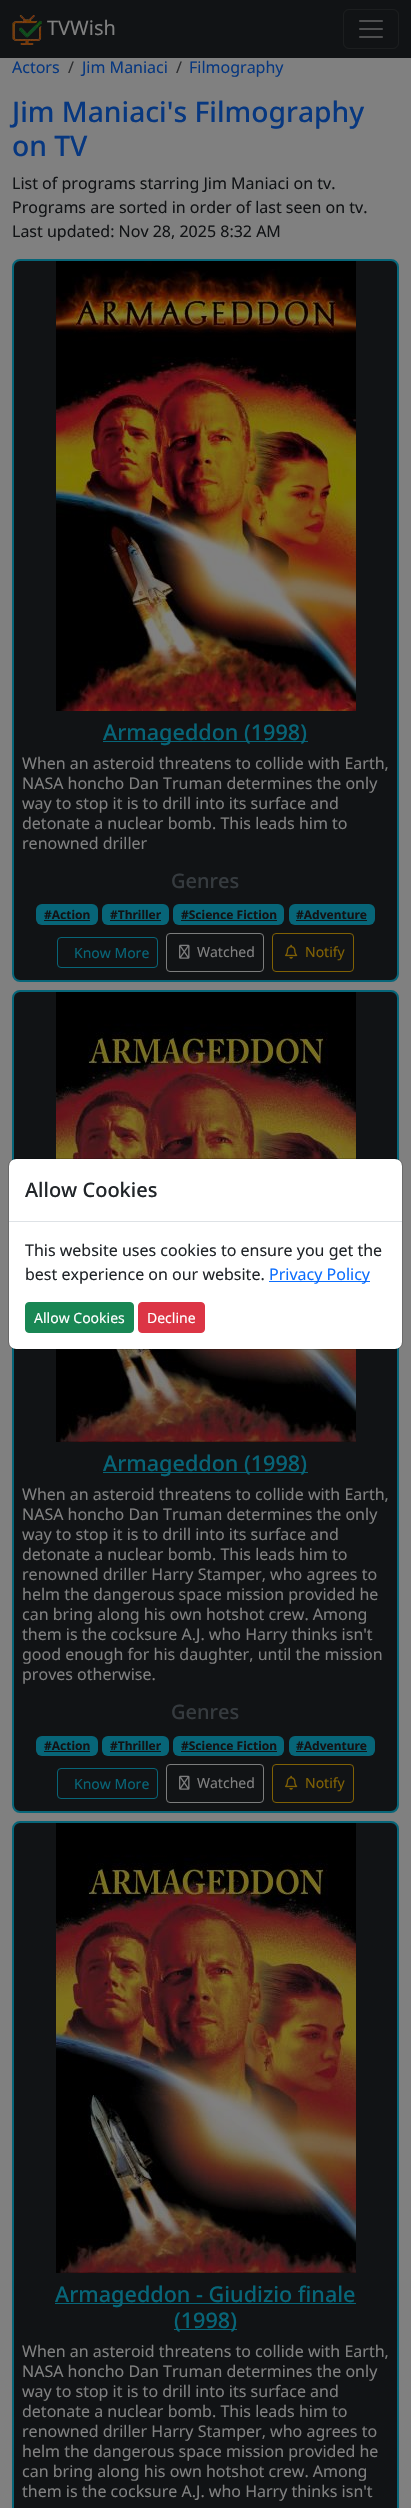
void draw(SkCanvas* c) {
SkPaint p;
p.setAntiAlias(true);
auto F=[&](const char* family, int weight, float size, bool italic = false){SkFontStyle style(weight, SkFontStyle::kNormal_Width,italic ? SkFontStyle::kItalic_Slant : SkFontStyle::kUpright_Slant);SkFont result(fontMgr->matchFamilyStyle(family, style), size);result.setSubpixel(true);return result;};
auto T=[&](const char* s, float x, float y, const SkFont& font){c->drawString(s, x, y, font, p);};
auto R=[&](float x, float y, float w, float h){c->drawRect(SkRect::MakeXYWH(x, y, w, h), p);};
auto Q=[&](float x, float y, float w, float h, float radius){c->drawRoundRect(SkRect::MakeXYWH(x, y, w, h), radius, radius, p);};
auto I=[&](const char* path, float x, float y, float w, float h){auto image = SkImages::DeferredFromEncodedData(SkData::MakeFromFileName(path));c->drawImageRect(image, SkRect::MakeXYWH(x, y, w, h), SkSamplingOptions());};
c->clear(0xff808080);
p.setColor(0xff111315);
R(0,0,411,58);
I("1.png",12,15,30,30);
auto f1 = F("Noto Sans",400,20);
p.setColor(0xff808080);
T("TVWish",47,35,f1);
p.setStroke(true);
p.setStrokeWidth(1);
p.setColor(0xff1c1e1f);
c->drawRoundRect(SkRect::MakeXYWH(343.5,9.5,55,39),5.5,5.5,p);
I("2.png",359,20,24,18);
auto f2 = F("Noto Sans",400,16);
p.setStroke(false);
p.setColor(0xff07377f);
T("Actors",12,73,f2);
p.setColor(0xff2d2e30);
T("/",68,73,f2);
p.setColor(0xff07377f);
T("Jim Maniaci",82,73,f2);
p.setColor(0xff2d2e30);
T("/",176,73,f2);
p.setColor(0xff07377f);
T("Filmography",189,73,f2);
auto f3 = F("Noto Sans",500,28.2);
T("Jim Maniaci's Filmography",12,122,f3);
T("on TV",12,156,f3);
p.setColor(0xff111315);
T("List of programs starring Jim Maniaci on tv.",12,189,f2);
T("Programs are sorted in order of last seen on tv.",12,213,f2);
T("Last updated: Nov 28, 2025 8:32 AM",12,237,f2);
c->drawRoundRect(SkRect::MakeXYWH(13,260,385,721),7,7,p);
p.setStroke(true);
p.setStrokeWidth(2);
p.setColor(0xff076578);
c->drawRoundRect(SkRect::MakeXYWH(13,260,385,721),7,7,p);
I("3.png",56,261,300,450);
p.setStroke(false);
R(103,741,205,1);
auto f4 = F("Noto Sans",500,21.6);
T("Armageddon (1998)",103,740,f4);
p.setColor(0xff808080);
T("When an asteroid threatens to collide with Earth,",22,769,f2);
T("NASA honcho Dan Truman determines the only",22,789,f2);
T("way to stop it is to drill into its surface and",22,809,f2);
T("detonate a nuclear bomb. This leads him to",22,829,f2);
T("renowned driller",22,849,f2);
auto f5 = F("Noto Sans",500,20);
p.setColor(0xff363b3f);
T("Genres",171,888,f5);
p.setColor(0xff076578);
Q(36,904,62,21,6);
auto f6 = F("Noto Sans",700,12);
p.setColor(0xff111315);
T("#Action",44,919,f6);
R(44,920,46,1);
p.setColor(0xff076578);
Q(102,904,67,21,6);
p.setColor(0xff111315);
T("#Thriller",110,919,f6);
R(110,920,51,1);
p.setColor(0xff076578);
Q(173,904,111,21,6);
p.setColor(0xff111315);
T("#Science Fiction",181,919,f6);
R(181,920,96,1);
p.setColor(0xff076578);
Q(289,904,86,21,6);
p.setColor(0xff111315);
T("#Adventure",296,919,f6);
R(296,920,71,1);
p.setStroke(true);
p.setStrokeWidth(1);
p.setColor(0xff076578);
c->drawRoundRect(SkRect::MakeXYWH(57.5,937.5,100,30),3.5,3.5,p);
auto f7 = F("Noto Sans",400,14);
p.setStroke(false);
T("Know More",74,958,f7);
p.setStroke(true);
p.setColor(0xff7c7d7d);
c->drawRoundRect(SkRect::MakeXYWH(166.5,933.5,97,38),3.5,3.5,p);
I("4.png",179,944,11,15);
p.setStroke(false);
p.setColor(0xff808080);
T("Watched",197,957,f7);
p.setStroke(true);
p.setColor(0xff806104);
c->drawRoundRect(SkRect::MakeXYWH(272.5,933.5,81,38),3.5,3.5,p);
I("5.png",285,944,13,15);
p.setStroke(false);
T("Notify",305,957,f7);
p.setColor(0xff111315);
c->drawRoundRect(SkRect::MakeXYWH(13,991,385,821),7,7,p);
p.setStroke(true);
p.setStrokeWidth(2);
p.setColor(0xff076578);
c->drawRoundRect(SkRect::MakeXYWH(13,991,385,821),7,7,p);
I("6.png",56,992,300,450);
p.setStroke(false);
R(103,1472,205,1);
T("Armageddon (1998)",103,1471,f4);
p.setColor(0xff808080);
T("When an asteroid threatens to collide with Earth,",22,1500,f2);
T("NASA honcho Dan Truman determines the only",22,1520,f2);
T("way to stop it is to drill into its surface and",22,1540,f2);
T("detonate a nuclear bomb. This leads him to",22,1560,f2);
T("renowned driller Harry Stamper, who agrees to",22,1580,f2);
T("helm the dangerous space mission provided he",22,1600,f2);
T("can bring along his own hotshot crew. Among",22,1620,f2);
T("them is the cocksure A.J. who Harry thinks isn't",22,1640,f2);
T("good enough for his daughter, until the mission",22,1660,f2);
T("proves otherwise.",22,1680,f2);
p.setColor(0xff363b3f);
T("Genres",171,1719,f5);
p.setColor(0xff076578);
Q(36,1736,62,20,6);
p.setColor(0xff111315);
T("#Action",44,1750,f6);
R(44,1751,46,1);
p.setColor(0xff076578);
Q(102,1736,67,20,6);
p.setColor(0xff111315);
T("#Thriller",110,1750,f6);
R(110,1751,51,1);
p.setColor(0xff076578);
Q(173,1736,111,20,6);
p.setColor(0xff111315);
T("#Science Fiction",181,1750,f6);
R(181,1751,96,1);
p.setColor(0xff076578);
Q(289,1736,86,20,6);
p.setColor(0xff111315);
T("#Adventure",296,1750,f6);
R(296,1751,71,1);
p.setStroke(true);
p.setStrokeWidth(1);
p.setColor(0xff076578);
c->drawRoundRect(SkRect::MakeXYWH(57.5,1768.5,100,30),3.5,3.5,p);
p.setStroke(false);
T("Know More",74,1789,f7);
p.setStroke(true);
p.setColor(0xff7c7d7d);
c->drawRoundRect(SkRect::MakeXYWH(166.5,1764.5,97,38),3.5,3.5,p);
I("4.png",179,1775,11,15);
p.setStroke(false);
p.setColor(0xff808080);
T("Watched",197,1788,f7);
p.setStroke(true);
p.setColor(0xff806104);
c->drawRoundRect(SkRect::MakeXYWH(272.5,1764.5,81,38),3.5,3.5,p);
I("5.png",285,1775,13,15);
p.setStroke(false);
T("Notify",305,1788,f7);
p.setColor(0xff111315);
c->drawRoundRect(SkRect::MakeXYWH(13,1822,385,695),7,7,p);
p.setStroke(true);
p.setStrokeWidth(2);
p.setColor(0xff076578);
c->drawRoundRect(SkRect::MakeXYWH(13,1822,385,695),7,7,p);
I("6.png",56,1823,300,450);
p.setStroke(false);
R(55,2303,301,1);
T("Armageddon - Giudizio finale",55,2302,f4);
R(174,2329,63,1);
T("(1998)",174,2328,f4);
p.setColor(0xff808080);
T("When an asteroid threatens to collide with Earth,",22,2357,f2);
T("NASA honcho Dan Truman determines the only",22,2377,f2);
T("way to stop it is to drill into its surface and",22,2397,f2);
T("detonate a nuclear bomb. This leads him to",22,2417,f2);
T("renowned driller Harry Stamper, who agrees to",22,2437,f2);
T("helm the dangerous space mission provided he",22,2457,f2);
T("can bring along his own hotshot crew. Among",22,2477,f2);
T("them is the cocksure A.J. who Harry thinks isn't",22,2497,f2);
p.setColor(0xffffffff);
Q(9,1159,393,190,7);
p.setStroke(true);
p.setStrokeWidth(1);
p.setColor(0x2e000000);
c->drawRoundRect(SkRect::MakeXYWH(8.5,1158.5,394,191),7.5,7.5,p);
p.setStroke(false);
p.setColor(0xffdee2e6);
R(9,1221,393,1);
p.setColor(0xff212529);
T("Allow Cookies",25,1197,f5);
T("This website uses cookies to ensure you get the",25,1256,f2);
T("best experience on our website.",25,1280,f2);
p.setColor(0xff0d6efd);
R(269,1281,101,1);
T("Privacy Policy",269,1280,f2);
p.setColor(0xff198754);
c->drawRoundRect(SkRect::MakeXYWH(25.5,1302.5,108,30),3.5,3.5,p);
p.setStroke(true);
c->drawRoundRect(SkRect::MakeXYWH(25.5,1302.5,108,30),3.5,3.5,p);
p.setStroke(false);
p.setColor(0xffffffff);
T("Allow Cookies",34,1323,f7);
p.setColor(0xffdc3545);
c->drawRoundRect(SkRect::MakeXYWH(138.5,1302.5,66,30),3.5,3.5,p);
p.setStroke(true);
c->drawRoundRect(SkRect::MakeXYWH(138.5,1302.5,66,30),3.5,3.5,p);
p.setStroke(false);
p.setColor(0xffffffff);
T("Decline",147,1323,f7);
}
